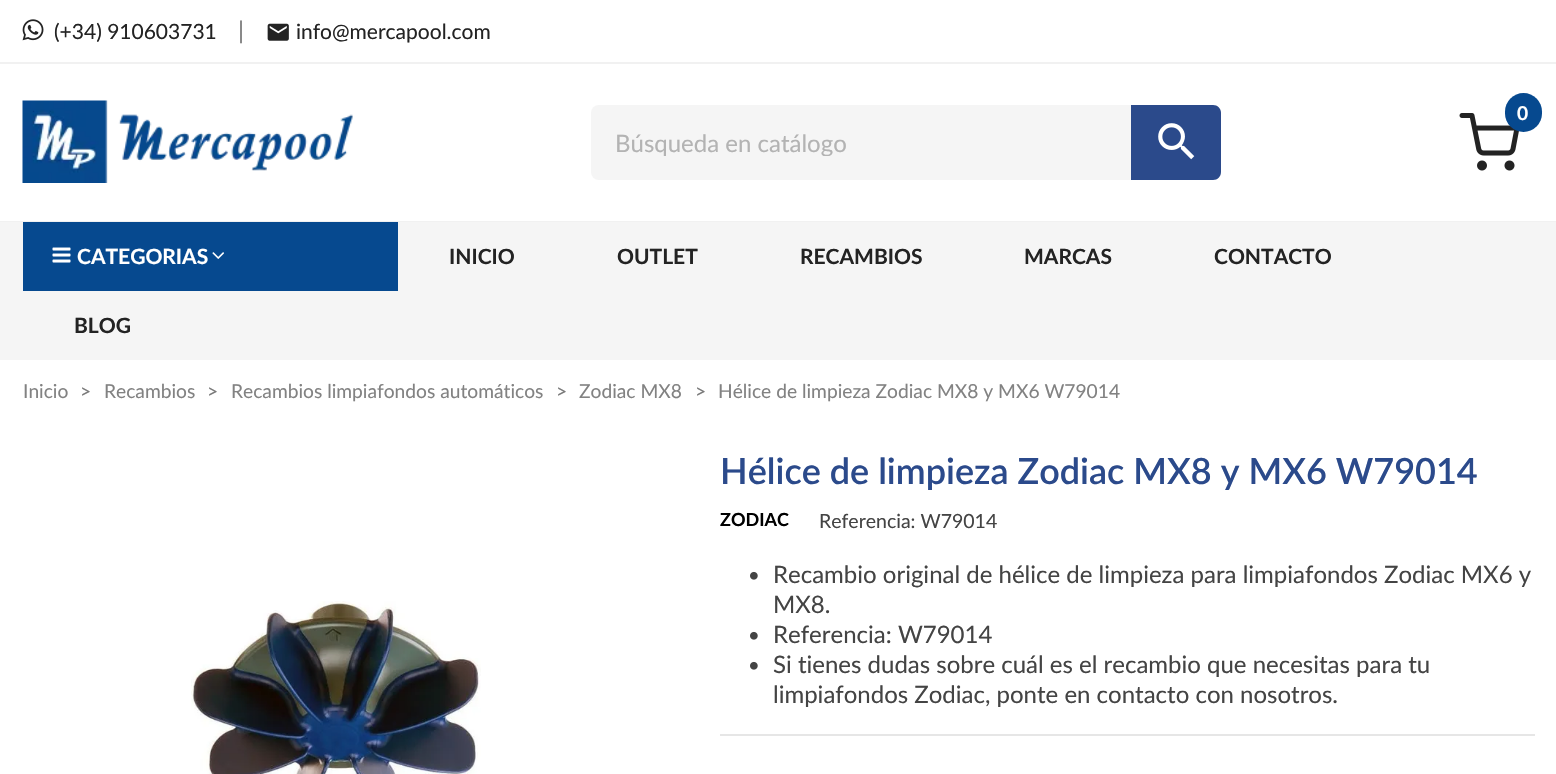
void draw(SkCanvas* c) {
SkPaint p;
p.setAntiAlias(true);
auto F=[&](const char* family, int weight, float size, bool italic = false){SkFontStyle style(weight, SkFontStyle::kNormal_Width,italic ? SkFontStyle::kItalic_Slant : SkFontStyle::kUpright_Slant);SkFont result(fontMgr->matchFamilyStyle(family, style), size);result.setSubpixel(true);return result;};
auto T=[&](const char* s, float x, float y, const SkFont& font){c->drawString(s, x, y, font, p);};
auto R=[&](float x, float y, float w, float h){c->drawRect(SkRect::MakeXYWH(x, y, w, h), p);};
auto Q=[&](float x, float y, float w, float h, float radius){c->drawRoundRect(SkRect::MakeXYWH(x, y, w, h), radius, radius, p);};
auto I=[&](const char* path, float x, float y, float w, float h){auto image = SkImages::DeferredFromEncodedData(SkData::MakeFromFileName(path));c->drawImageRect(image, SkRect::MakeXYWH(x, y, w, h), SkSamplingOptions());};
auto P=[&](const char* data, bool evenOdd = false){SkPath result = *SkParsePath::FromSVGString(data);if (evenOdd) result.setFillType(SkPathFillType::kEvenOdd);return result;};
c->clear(0xffffffff);
p.setColor(0xfff1f1f1);
R(0,62,1556,2);
I("1.png",22,19,22,22);
auto f1 = F("Lato",400,21);
p.setColor(0xff232323);
T("(+34) 910603731",54,39,f1);
auto f2 = F("Lato",400,24);
p.setColor(0xff7a7a7a);
T("|",238,39,f2);
I("2.png",267,23,22,18);
p.setColor(0xff232323);
T("info@mercapool.com",296,39,f1);
p.setColor(0xfff1f1f1);
R(0,221,1556,1);
I("3.png",22,100,331,83);
I("4.png",1459,113,60,58);
p.setColor(0xff06498f);
Q(1505,93,37,39,18.5);
auto f3 = F("Lato",700,19.2);
p.setColor(0xffffffff);
T("0",1517,120,f3);
p.setColor(0xfff5f5f5);
Q(591,105,630,75,8);
c->save();
c->clipRect(SkRect::MakeXYWH(615,128,582,28));
p.setColor(0xffb3b3b3);
T("Búsqueda en catálogo",615,152,f2);
c->restore();
p.setColor(0xff2b4a8b);
c->drawPath(P("M1131 105h82c4.5 0 8 3.5 8 8v59c0 4.5-3.5 8-8 8h-82z"),p);
I("5.png",1158,123,37,37);
p.setColor(0xfff5f5f5);
R(0,222,1556,138);
p.setColor(0xff06498f);
R(23,222,375,69);
I("6.png",52,247,19,16);
auto f4 = F("Lato",700,21);
p.setColor(0xffffffff);
T("CATEGORIAS",77,264,f4);
I("7.png",212,252,12,7);
p.setColor(0xff232323);
T("INICIO",449,264,f4);
T("OUTLET",617,264,f4);
T("RECAMBIOS",800,264,f4);
T("MARCAS",1024,264,f4);
T("CONTACTO",1214,264,f4);
T("BLOG",74,333,f4);
auto f5 = F("Lato",400,19.2);
p.setColor(0xff828282);
T("Inicio",23,398,f5);
p.setColor(0xff7a7a7a);
T(">",80,398,f5);
p.setColor(0xff828282);
T("Recambios",104,398,f5);
p.setColor(0xff7a7a7a);
T(">",207,398,f5);
p.setColor(0xff828282);
T("Recambios limpiafondos automáticos",231,398,f5);
p.setColor(0xff7a7a7a);
T(">",556,398,f5);
p.setColor(0xff828282);
T("Zodiac MX8",579,398,f5);
p.setColor(0xff7a7a7a);
T(">",695,398,f5);
p.setColor(0xff828282);
T("Hélice de limpieza Zodiac MX8 y MX6 W79014",718,398,f5);
I("8.png",191,601,290,173);
auto f6 = F("Lato",600,36);
p.setColor(0xff2b4a8b);
T("Hélice de limpieza Zodiac MX8 y MX6 W79014",720,484,f6);
auto f7 = F("Lato",700,18);
p.setColor(0xff000000);
T("ZODIAC",720,526,f7);
auto f8 = F("Lato",400,19.5);
p.setColor(0xff444444);
T("Referencia: W79014",819,528,f8);
I("9.png",750,571,8,9);
T("Recambio original de hélice de limpieza para limpiafondos Zodiac MX6 y",773,583,f2);
T("MX8.",773,613,f2);
I("9.png",750,631,8,9);
T("Referencia: W79014",773,643,f2);
I("9.png",750,661,8,9);
T("Si tienes dudas sobre cuál es el recambio que necesitas para tu",773,673,f2);
T("limpiafondos Zodiac, ponte en contacto con nosotros.",773,703,f2);
p.setColor(0xffe6e6e6);
R(720,734,815,2);
}
